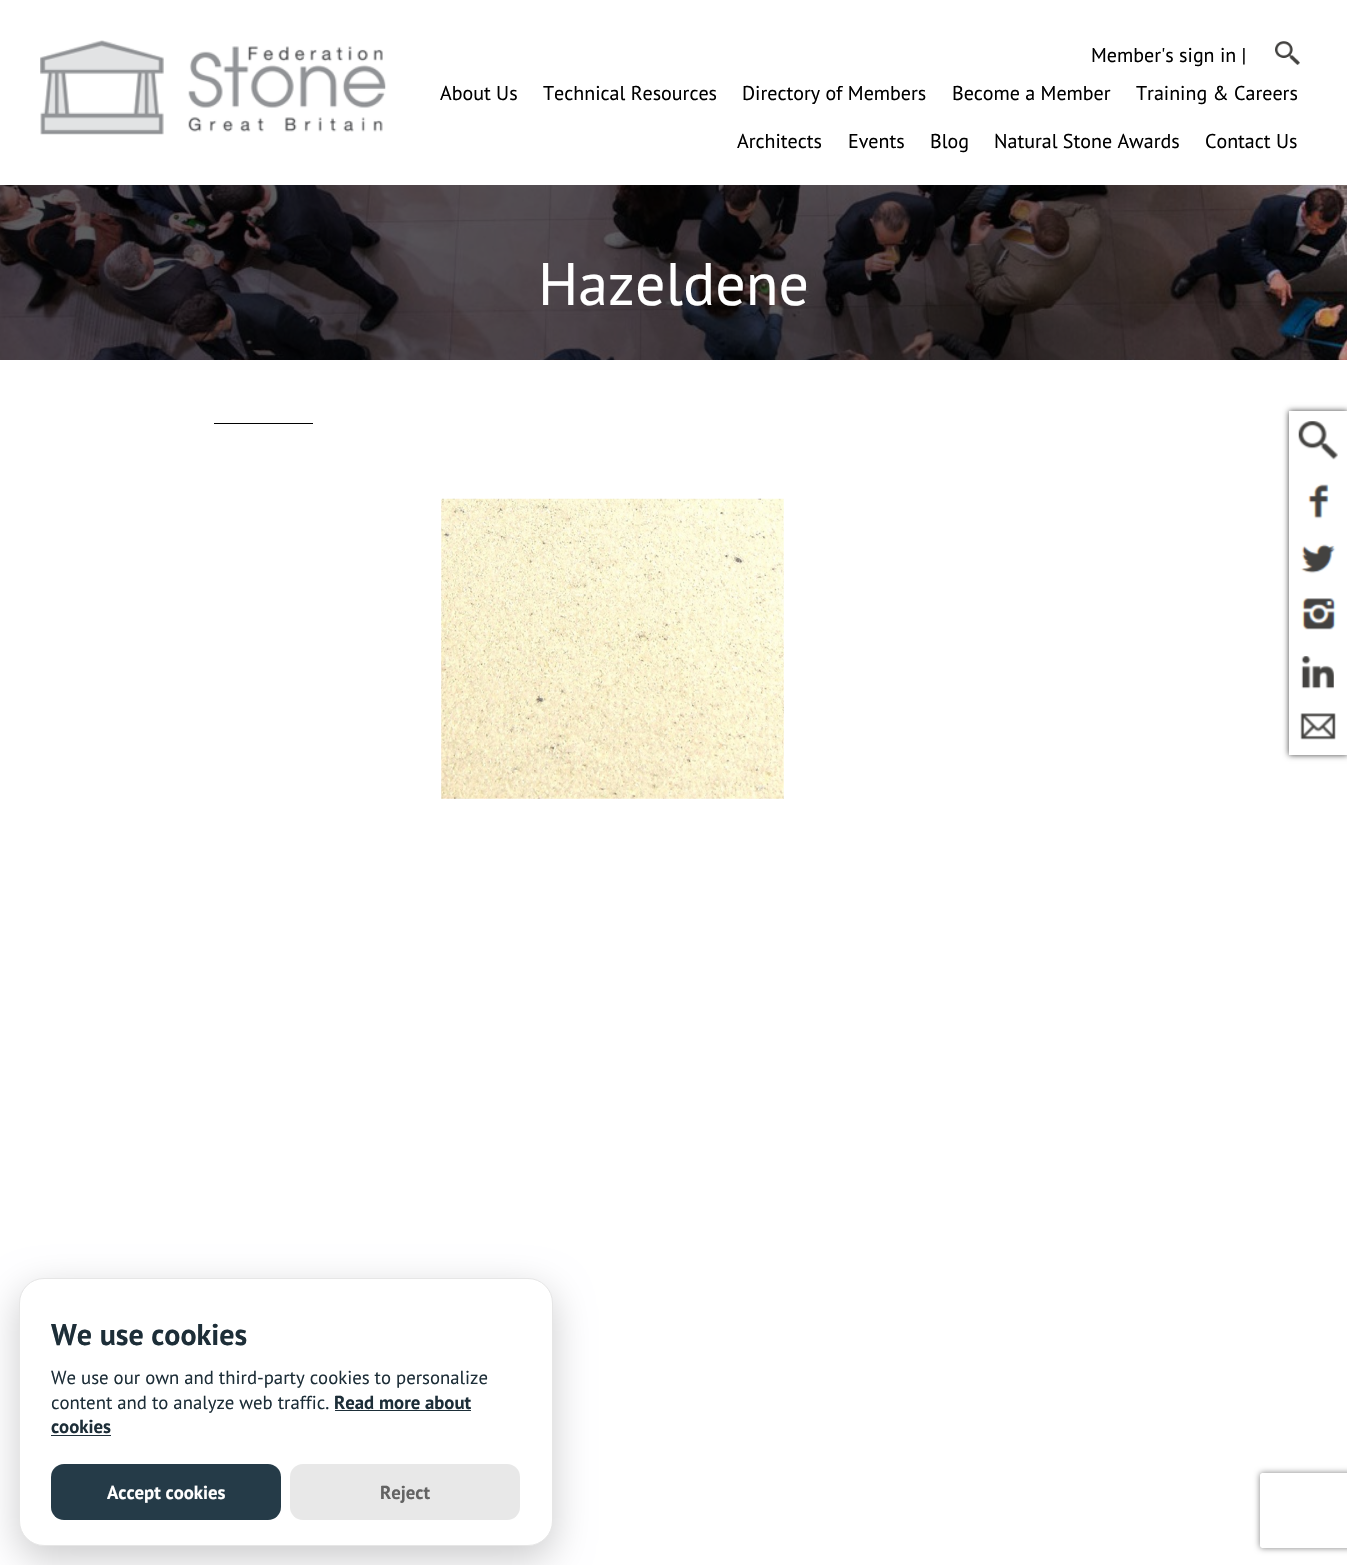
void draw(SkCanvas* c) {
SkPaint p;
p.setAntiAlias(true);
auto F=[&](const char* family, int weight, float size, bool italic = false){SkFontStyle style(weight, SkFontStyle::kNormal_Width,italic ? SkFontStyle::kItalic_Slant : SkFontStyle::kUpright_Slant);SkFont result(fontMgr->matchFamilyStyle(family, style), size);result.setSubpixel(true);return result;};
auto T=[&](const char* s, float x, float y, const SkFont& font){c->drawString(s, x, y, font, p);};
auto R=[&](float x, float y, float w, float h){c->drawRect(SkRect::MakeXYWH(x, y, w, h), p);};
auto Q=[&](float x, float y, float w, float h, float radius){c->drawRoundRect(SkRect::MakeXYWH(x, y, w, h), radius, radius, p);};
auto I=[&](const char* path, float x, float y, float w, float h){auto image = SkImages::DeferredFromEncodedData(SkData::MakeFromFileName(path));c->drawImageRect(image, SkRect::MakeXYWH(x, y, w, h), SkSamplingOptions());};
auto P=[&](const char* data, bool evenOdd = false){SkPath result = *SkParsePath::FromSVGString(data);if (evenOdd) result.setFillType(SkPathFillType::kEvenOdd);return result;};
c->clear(0xffffffff);
I("1.png",40,40,346,95);
auto f1 = F("PT Sans",400,20);
p.setColor(0xff000000);
T("Member's sign in |",1091,62,f1);
I("2.png",1275,41,25,24);
T("About Us",440,100,f1);
T("Technical Resources",543,100,f1);
T("Directory of Members",742,100,f1);
T("Become a Member",952,100,f1);
T("Training & Careers",1136,100,f1);
T("Architects",737,148,f1);
T("Events",848,148,f1);
T("Blog",930,148,f1);
T("Natural Stone Awards",994,148,f1);
T("Contact Us",1205,148,f1);
I("4.png",0,185,1347,175);
I("3.png",0,185,1347,175);
auto f2 = F("PT Sans",400,60);
p.setColor(0xffffffff);
T("Hazeldene",538,305,f2);
p.setColor(0xff010101);
R(214,423,99,1);
I("5.png",441,498,343,301);
p.setColor(0xbf000000);
p.setMaskFilter(SkMaskFilter::MakeBlur(kNormal_SkBlurStyle, 3));
c->drawRect(SkRect::MakeXYWH(1289,411,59,344),p);
p.setMaskFilter(nullptr);
p.setColor(0xffffffff);
R(1289,411,58,344);
I("6.png",1298,421,40,39);
I("7.png",1308,484,21,35);
I("8.png",1300,544,36,30);
I("9.png",1301,598,35,32);
I("10.png",1301,656,33,33);
I("11.png",1300,713,36,27);
p.setColor(0x33020203);
p.setMaskFilter(SkMaskFilter::MakeBlur(kNormal_SkBlurStyle, 19));
c->drawRoundRect(SkRect::MakeXYWH(19,1290,534,269),25,25,p);
p.setMaskFilter(nullptr);
p.setColor(0xffffffff);
c->drawRoundRect(SkRect::MakeXYWH(19.5,1278.5,533,267),24.5,24.5,p);
p.setStroke(true);
p.setStrokeWidth(1);
p.setColor(0xffe6e6e6);
c->drawRoundRect(SkRect::MakeXYWH(19.5,1278.5,533,267),24.5,24.5,p);
auto f3 = F("PT Sans",700,30);
p.setStroke(false);
p.setColor(0xff1d2e38);
T("We use cookies",51,1345,f3);
auto f4 = F("PT Sans",400,18.75);
T("We use our own and third-party cookies to personalize",51,1384,f4);
T("content and to analyze web traffic.",51,1409,f4);
auto f5 = F("PT Sans",700,18.75);
T("Read more about",334,1409,f5);
R(335,1410,136,1);
T("cookies",51,1433,f5);
R(51,1435,60,1);
p.setColor(0xff253b48);
Q(51,1464,230,56,13);
p.setColor(0xffffffff);
T("Accept cookies",107,1499,f5);
p.setColor(0xffe8e8e8);
Q(290,1464,230,56,13);
p.setColor(0xff636363);
T("Reject",380,1499,f5);
c->save();
c->clipPath(P("M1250 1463h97v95h-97zm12.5 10h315c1.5 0 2.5 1 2.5 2.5v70c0 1.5-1 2.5-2.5 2.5h-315c-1.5 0-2.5-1-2.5-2.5v-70c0-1.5 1-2.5 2.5-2.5z",true),true);
p.setColor(0xff808080);
p.setMaskFilter(SkMaskFilter::MakeBlur(kNormal_SkBlurStyle, 3));
c->drawRoundRect(SkRect::MakeXYWH(1260,1473,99,75),2.5,2.5,p);
p.setMaskFilter(nullptr);
c->restore();
}
